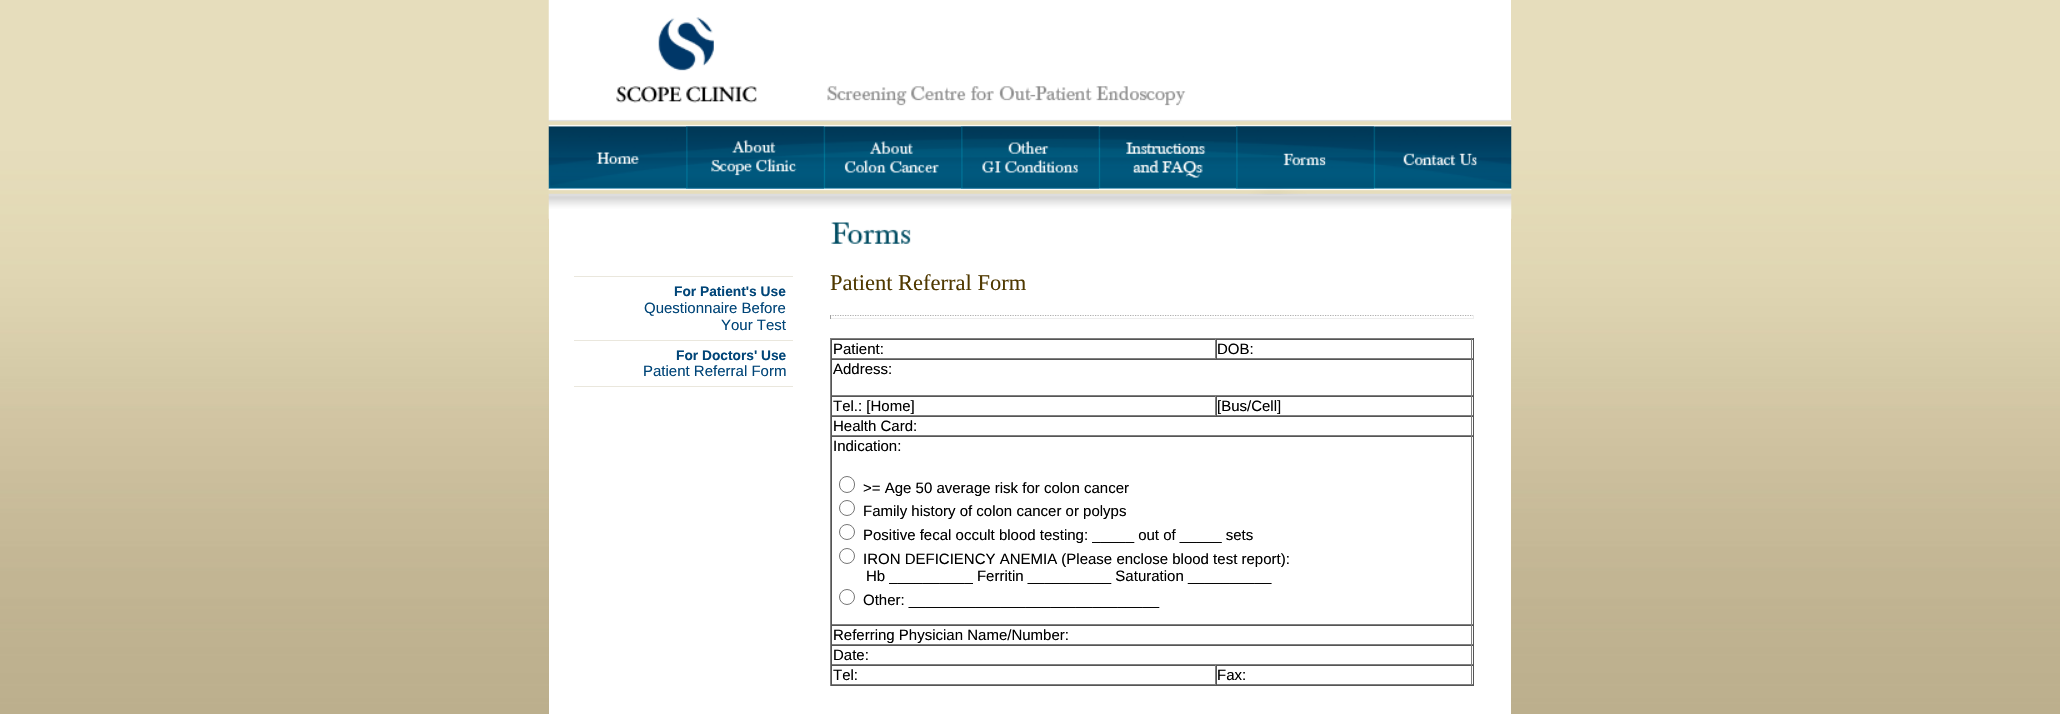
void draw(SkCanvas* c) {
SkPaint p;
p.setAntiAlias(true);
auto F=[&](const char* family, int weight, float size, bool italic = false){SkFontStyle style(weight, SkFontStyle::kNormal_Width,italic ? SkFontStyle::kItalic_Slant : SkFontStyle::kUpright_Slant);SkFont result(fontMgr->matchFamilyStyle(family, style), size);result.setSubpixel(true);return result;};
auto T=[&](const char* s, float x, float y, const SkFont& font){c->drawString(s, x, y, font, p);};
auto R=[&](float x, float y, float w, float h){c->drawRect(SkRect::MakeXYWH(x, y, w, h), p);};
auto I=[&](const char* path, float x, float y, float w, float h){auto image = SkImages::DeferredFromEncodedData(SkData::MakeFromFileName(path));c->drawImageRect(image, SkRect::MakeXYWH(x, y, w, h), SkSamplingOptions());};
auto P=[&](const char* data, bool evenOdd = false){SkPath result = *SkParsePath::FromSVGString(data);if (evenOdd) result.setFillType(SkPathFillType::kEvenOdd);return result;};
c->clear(0xffffffff);
I("1.png",0,0,2060,714);
p.setColor(0xffffffff);
R(549,0,962,714);
I("2.png",548,0,209,119);
I("3.png",827,86,359,20);
I("5.png",548,126,138,63);
p.setColor(0xff004578);
R(686,126,138,63);
I("6.png",686,126,138,63);
I("7.png",823,126,138,63);
R(961,126,138,63);
I("8.png",961,126,138,63);
I("9.png",1098,126,138,63);
R(1236,126,138,63);
I("10.png",1236,126,138,63);
I("11.png",1373,126,139,63);
I("4.png",548,118,964,9);
I("12.png",548,188,964,7);
I("13.png",548,195,964,24);
p.setColor(0xffeae7dd);
R(574,276,219,1);
R(574,340,219,1);
auto f1 = F("Liberation Sans",700,13.75);
p.setColor(0xff004578);
T("For Patient's Use",674,296,f1);
auto f2 = F("Liberation Sans",400,15);
T("Questionnaire Before",644,313,f2);
T("Your Test",721,330,f2);
p.setColor(0xffeae7dd);
R(574,386,219,1);
p.setColor(0xff004578);
T("For Doctors' Use",676,360,f1);
T("Patient Referral Form",643,376,f2);
I("14.png",831,222,80,22);
auto f3 = F("Liberation Serif",400,22.5);
p.setColor(0xff503900);
T("Patient Referral Form",830,290,f3);
p.setStroke(true);
p.setStrokeWidth(1.2);
p.setColor(0xffafafaf);
p.setPathEffect(SkDashPathEffect::Make({{1.25f,1.25f}}, 0));
c->drawPath(P("M830 315.5h644"),p);
p.setPathEffect(nullptr);
p.setStroke(false);
p.setColor(0xffeeeeee);
R(1473,315,1,4);
R(830,318,644,1);
p.setColor(0xff9f9f9f);
R(830,315,1,4);
p.setColor(0xff808080);
R(830,338,644,1);
p.setColor(0xff555555);
R(1473,338,1,348);
R(830,685,644,1);
p.setColor(0xff808080);
R(830,338,1,348);
p.setColor(0xff555555);
R(831,339,642,1);
p.setColor(0xff808080);
R(1215,339,1,20);
R(831,358,385,1);
p.setColor(0xff555555);
R(831,339,1,20);
p.setColor(0xff000000);
T("Patient:",833,354,f2);
p.setColor(0xff808080);
R(1471,339,1,20);
R(1216,358,257,1);
p.setColor(0xff555555);
R(1216,339,1,20);
p.setColor(0xff000000);
T("DOB:",1217,354,f2);
p.setColor(0xff555555);
R(831,359,642,1);
p.setColor(0xff808080);
R(1471,359,1,37);
R(831,395,642,1);
p.setColor(0xff555555);
R(831,359,1,37);
p.setColor(0xff000000);
T("Address:",833,374,f2);
p.setColor(0xff555555);
R(831,396,642,1);
p.setColor(0xff808080);
R(1215,396,1,20);
R(831,415,385,1);
p.setColor(0xff555555);
R(831,396,1,20);
p.setColor(0xff000000);
T("Tel.: [Home]",833,411,f2);
p.setColor(0xff808080);
R(1471,396,1,20);
R(1216,415,257,1);
p.setColor(0xff555555);
R(1216,396,1,20);
p.setColor(0xff000000);
T("[Bus/Cell]",1217,411,f2);
p.setColor(0xff555555);
R(831,416,642,1);
p.setColor(0xff808080);
R(1471,416,1,20);
R(831,435,642,1);
p.setColor(0xff555555);
R(831,416,1,20);
p.setColor(0xff000000);
T("Health Card:",833,431,f2);
p.setColor(0xff555555);
R(831,436,642,1);
p.setColor(0xff808080);
R(1471,436,1,189);
R(831,624,642,1);
p.setColor(0xff555555);
R(831,436,1,189);
p.setColor(0xff000000);
T("Indication:",833,451,f2);
p.setStroke(true);
p.setStrokeWidth(1);
p.setColor(0xff767676);
c->drawRoundRect(SkRect::MakeXYWH(839.5,476.5,15,16),7.5,7.5,p);
p.setStroke(false);
p.setColor(0xff000000);
T(">= Age 50 average risk for colon cancer",863,493,f2);
p.setStroke(true);
p.setColor(0xff767676);
c->drawCircle(847,508,7.5,p);
p.setStroke(false);
p.setColor(0xff000000);
T("Family history of colon cancer or polyps",863,516,f2);
p.setStroke(true);
p.setColor(0xff767676);
c->drawCircle(847,532,7.5,p);
p.setStroke(false);
p.setColor(0xff000000);
T("Positive fecal occult blood testing: _____ out of _____ sets",863,540,f2);
p.setStroke(true);
p.setColor(0xff767676);
c->drawCircle(847,556,7.5,p);
p.setStroke(false);
p.setColor(0xff000000);
T("IRON DEFICIENCY ANEMIA (Please enclose blood test report):",863,564,f2);
T("Hb __________ Ferritin __________ Saturation __________",866,581,f2);
p.setStroke(true);
p.setColor(0xff767676);
c->drawCircle(847,597,7.5,p);
p.setStroke(false);
p.setColor(0xff000000);
T("Other: ______________________________",863,605,f2);
p.setColor(0xff555555);
R(831,625,642,1);
p.setColor(0xff808080);
R(1471,625,1,20);
R(831,644,642,1);
p.setColor(0xff555555);
R(831,625,1,20);
p.setColor(0xff000000);
T("Referring Physician Name/Number:",833,640,f2);
p.setColor(0xff555555);
R(831,645,642,1);
p.setColor(0xff808080);
R(1471,645,1,20);
R(831,664,642,1);
p.setColor(0xff555555);
R(831,645,1,20);
p.setColor(0xff000000);
T("Date:",833,660,f2);
p.setColor(0xff555555);
R(831,665,642,1);
p.setColor(0xff808080);
R(1215,665,1,20);
R(831,684,385,1);
p.setColor(0xff555555);
R(831,665,1,20);
p.setColor(0xff000000);
T("Tel:",833,680,f2);
p.setColor(0xff808080);
R(1471,665,1,20);
R(1216,684,257,1);
p.setColor(0xff555555);
R(1216,665,1,20);
p.setColor(0xff000000);
T("Fax:",1217,680,f2);
}
